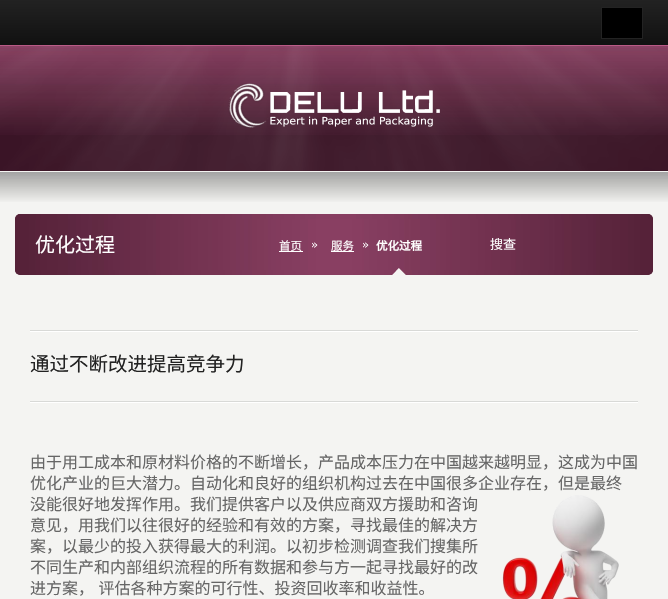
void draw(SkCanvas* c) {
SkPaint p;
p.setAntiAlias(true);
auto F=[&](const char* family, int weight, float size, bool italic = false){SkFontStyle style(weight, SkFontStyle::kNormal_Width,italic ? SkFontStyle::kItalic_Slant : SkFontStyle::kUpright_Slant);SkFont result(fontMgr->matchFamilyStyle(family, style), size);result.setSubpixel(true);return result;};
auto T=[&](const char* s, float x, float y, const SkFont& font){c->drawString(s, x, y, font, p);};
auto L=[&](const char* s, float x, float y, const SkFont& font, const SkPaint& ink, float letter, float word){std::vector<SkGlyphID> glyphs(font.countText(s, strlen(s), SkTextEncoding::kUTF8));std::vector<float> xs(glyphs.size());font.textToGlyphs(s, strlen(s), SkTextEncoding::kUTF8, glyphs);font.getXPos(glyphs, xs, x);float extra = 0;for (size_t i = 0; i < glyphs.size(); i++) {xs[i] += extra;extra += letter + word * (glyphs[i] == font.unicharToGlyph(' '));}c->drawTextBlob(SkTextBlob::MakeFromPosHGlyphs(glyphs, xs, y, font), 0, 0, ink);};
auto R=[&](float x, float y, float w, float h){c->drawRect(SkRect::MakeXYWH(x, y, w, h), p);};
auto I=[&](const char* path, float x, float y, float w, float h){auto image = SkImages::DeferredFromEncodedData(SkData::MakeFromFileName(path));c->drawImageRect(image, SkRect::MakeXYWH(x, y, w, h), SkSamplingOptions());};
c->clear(0xfff4f4f2);
{
const SkColor colors[] = {0xff222222,0xff111111};
const float stops[] = {0,1};
const SkPoint ends[] = {{334,0}, {334,45}};
p.setShader(SkGradientShader::MakeLinear(ends, colors, stops, 2, SkTileMode::kClamp));
p.setAlpha(255);
}
R(0,0,668,45);
p.setShader(nullptr);
p.setColor(0xff000000);
c->drawRect(SkRect::MakeXYWH(601.5,7.5,41,31),p);
p.setStroke(true);
p.setStrokeWidth(1);
p.setColor(0xff232323);
c->drawRect(SkRect::MakeXYWH(601.5,7.5,41,31),p);
p.setStroke(false);
p.setColor(0xff371022);
R(0,135,668,36);
I("1.png",0,45,668,90);
I("2.png",0,45,668,126);
I("3.png",228,83,212,45);
I("4.png",0,172,668,30);
I("5.png",15,214,638,61);
I("6.png",15,214,638,5);
I("7.png",15,270,638,5);
auto f1 = F("Noto Sans CJK SC",400,20);
p.setColor(0xffffffff);
T("优化过程",35,252,f1);
auto f2 = F("Noto Sans CJK SC",400,11.5);
T("首页",279,250,f2);
R(279,251,24,1);
I("8.png",312,242,6,6);
T("服务",331,250,f2);
R(331,251,23,1);
I("9.png",363,242,6,6);
auto f3 = F("Noto Sans CJK SC",700,11.5);
T("优化过程",376,250,f3);
I("10.png",392,268,14,7);
auto f4 = F("Noto Sans CJK SC",400,13);
T("搜查",490,249,f4);
I("11.png",30,330,608,2);
I("11.png",30,401,608,2);
auto f5 = F("Noto Sans CJK SC",400,19.5);
p.setColor(0xff222222);
T("通过不断改进提高竞争力",30,371,f5);
auto f6 = F("Noto Sans CJK SC",400,16);
p.setColor(0xff666666);
T("由于用工成本和原材料价格的不断增长，产品成本压力在中国越来越明显，这成为中国",30,468,f6);
T("优化产业的巨大潜力。自动化和良好的组织机构过去在中国很多企业存在，但是最终",30,489,f6);
T("没能很好地发挥作用。我们提供客户以及供应商双方援助和咨询",30,510,f6);
I("12.png",502,495,117,104);
T("意见，用我们以往很好的经验和有效的方案，寻找最佳的解决方",30,531,f6);
T("案，以最少的投入获得最大的利润。以初步检测调查我们搜集所",30,552,f6);
T("不同生产和内部组织流程的所有数据和参与方一起寻找最好的改",30,573,f6);
L("进方案， 评估各种方案的可行性、投资回收率和收益性。",30,594,f6,p,0,1);
}
